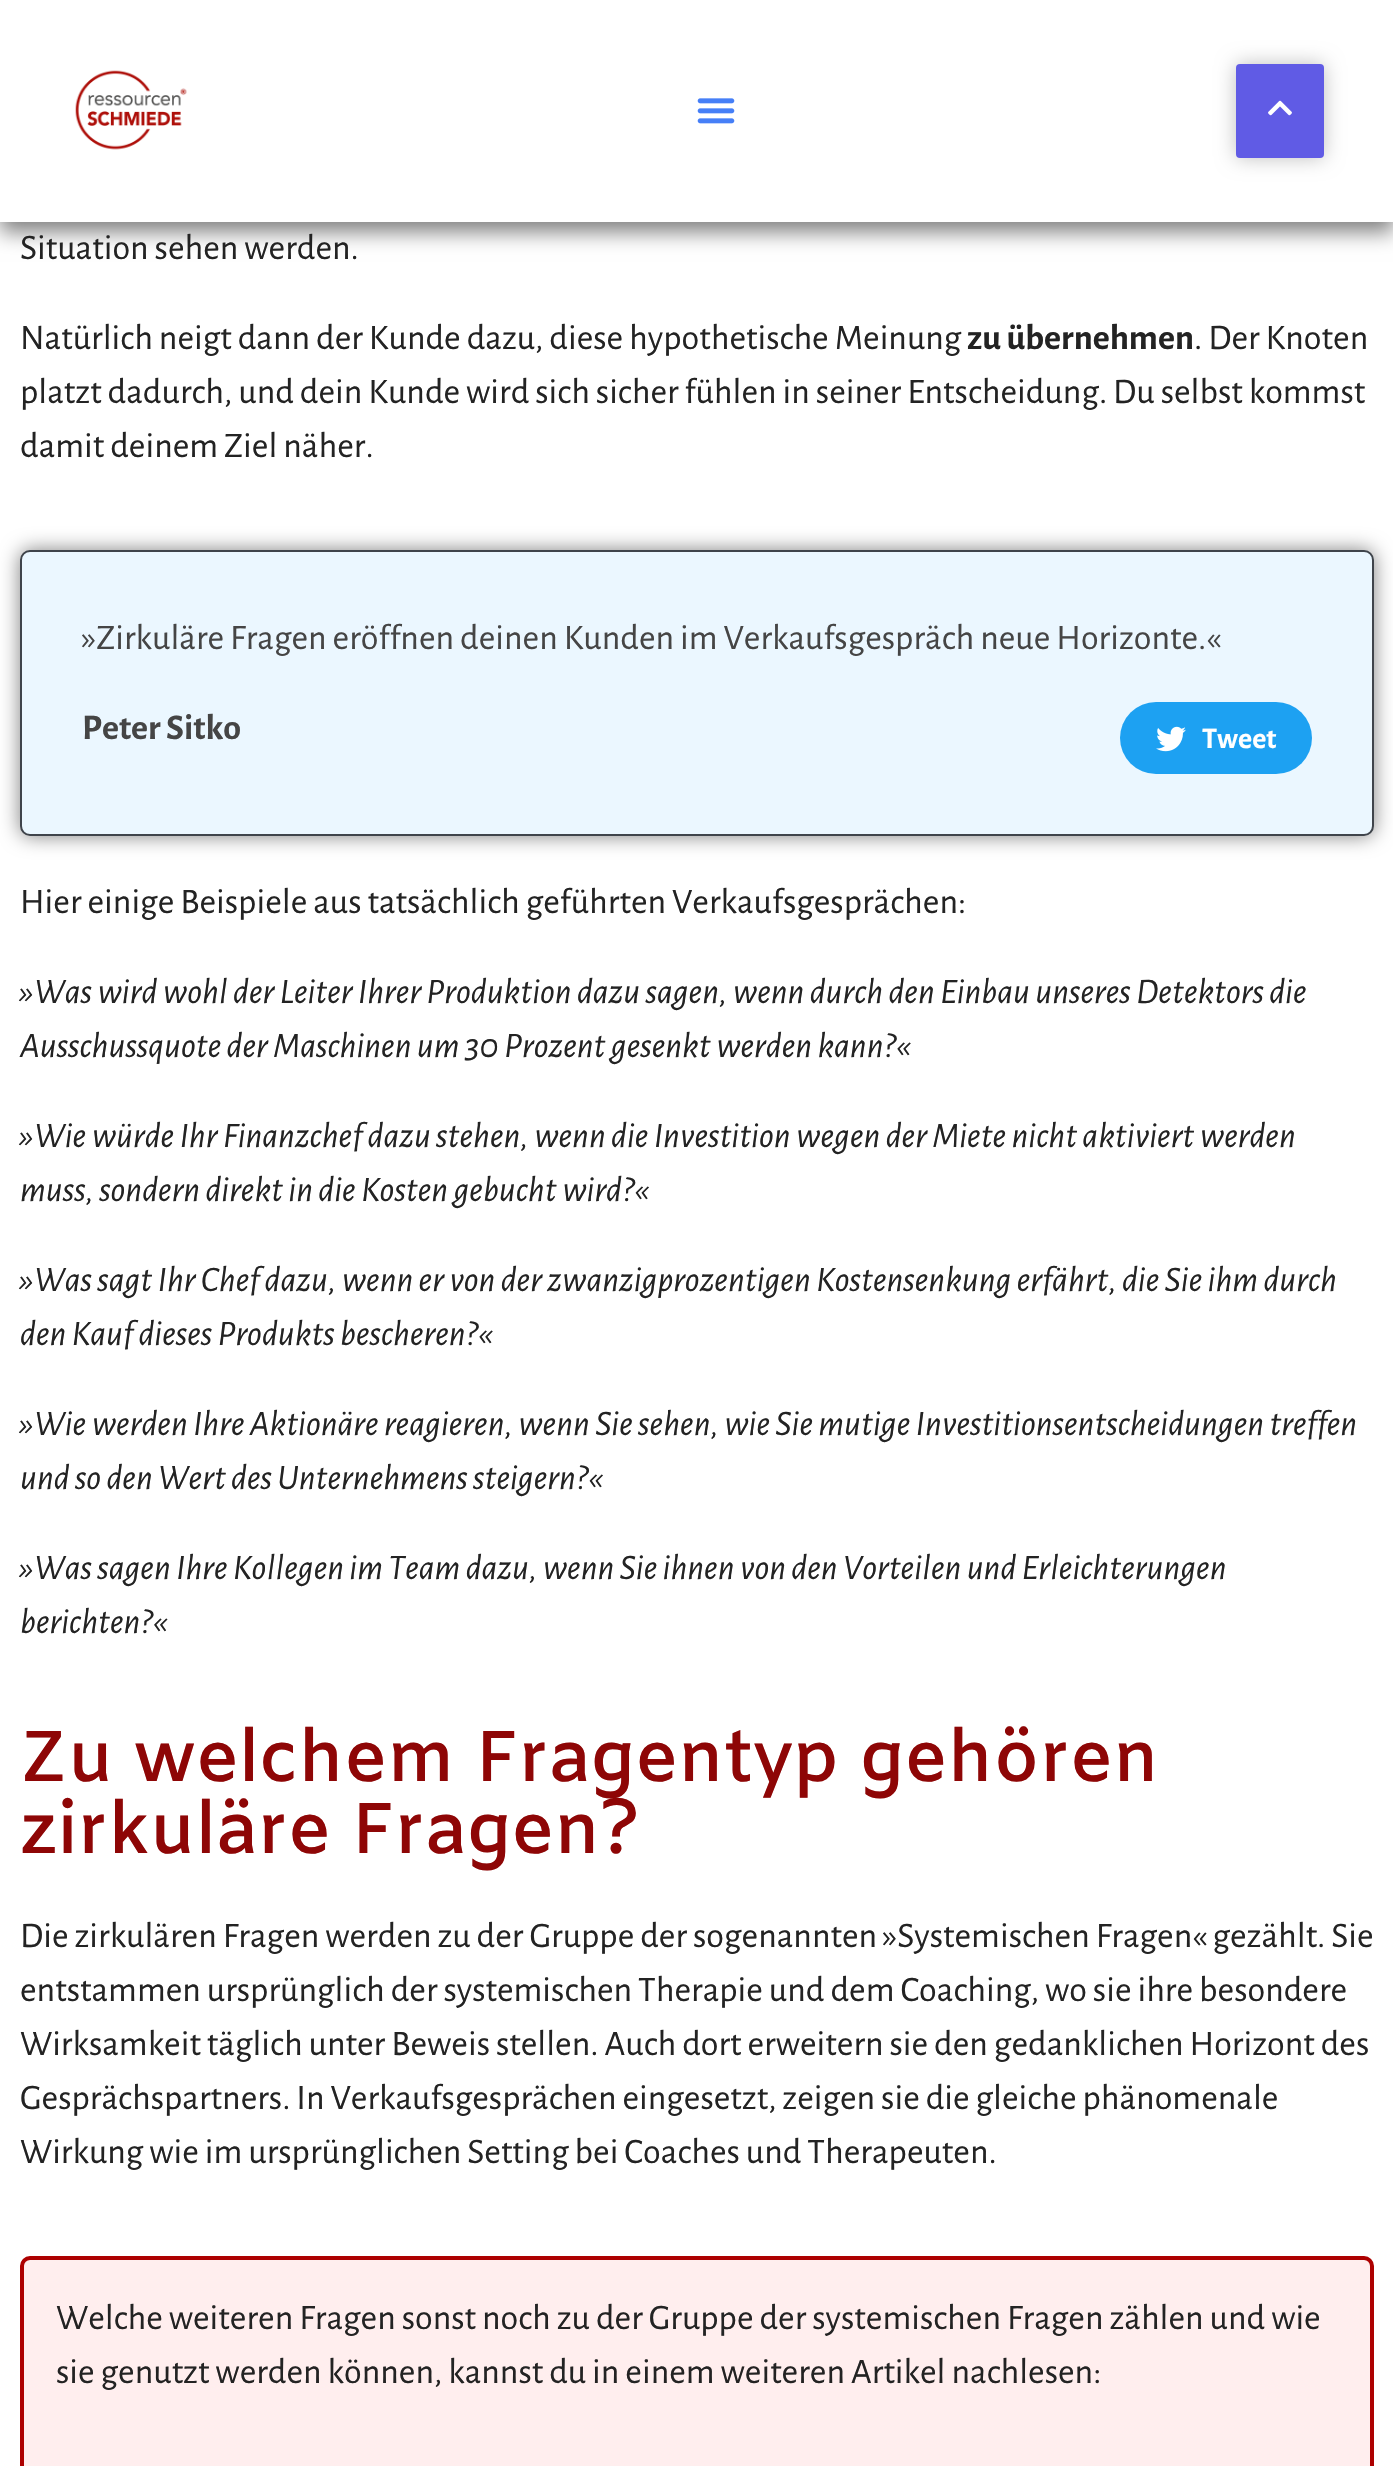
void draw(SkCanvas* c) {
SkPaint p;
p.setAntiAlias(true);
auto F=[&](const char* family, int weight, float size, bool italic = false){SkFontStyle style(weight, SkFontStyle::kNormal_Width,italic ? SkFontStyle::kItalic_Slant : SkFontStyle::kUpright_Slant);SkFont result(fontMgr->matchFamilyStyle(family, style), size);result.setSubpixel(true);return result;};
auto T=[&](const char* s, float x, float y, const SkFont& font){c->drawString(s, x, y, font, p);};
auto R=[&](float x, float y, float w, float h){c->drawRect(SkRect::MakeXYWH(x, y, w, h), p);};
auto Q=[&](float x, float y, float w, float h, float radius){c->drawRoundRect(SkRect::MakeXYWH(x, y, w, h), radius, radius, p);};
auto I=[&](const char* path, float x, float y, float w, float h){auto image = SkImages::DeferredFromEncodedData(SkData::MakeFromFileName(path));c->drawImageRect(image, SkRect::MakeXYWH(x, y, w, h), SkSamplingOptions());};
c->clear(0xffffffff);
p.setColor(0x80000000);
p.setMaskFilter(SkMaskFilter::MakeBlur(kNormal_SkBlurStyle, 10));
c->drawRect(SkRect::MakeXYWH(0,10,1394,222),p);
p.setMaskFilter(nullptr);
p.setColor(0xffffffff);
R(0,0,1393,222);
I("1.png",75,70,112,80);
I("2.png",697,98,38,26);
p.setColor(0x40000000);
p.setMaskFilter(SkMaskFilter::MakeBlur(kNormal_SkBlurStyle, 10));
c->drawRoundRect(SkRect::MakeXYWH(1236,64,88,94),4,4,p);
p.setMaskFilter(nullptr);
p.setColor(0xff605be5);
Q(1236,64,88,94,4);
I("3.png",1268,100,24,16);
auto f1 = F("Alegreya Sans",400,36);
p.setColor(0xff232323);
T("Situation sehen werden.",20,259,f1);
T("Natürlich neigt dann der Kunde dazu, diese hypothetische Meinung",20,349,f1);
auto f2 = F("Alegreya Sans",700,36);
T("zu übernehmen",967,349,f2);
T(". Der Knoten",1194,349,f1);
T("platzt dadurch, und dein Kunde wird sich sicher fühlen in seiner Entscheidung. Du selbst kommst",20,403,f1);
T("damit deinem Ziel näher.",20,457,f1);
p.setColor(0x80000000);
p.setMaskFilter(SkMaskFilter::MakeBlur(kNormal_SkBlurStyle, 10));
c->drawRoundRect(SkRect::MakeXYWH(20,550,1354,286),10,10,p);
p.setMaskFilter(nullptr);
p.setColor(0xffebf7ff);
c->drawRoundRect(SkRect::MakeXYWH(21,551,1352,284),9,9,p);
p.setStroke(true);
p.setStrokeWidth(2);
p.setColor(0xff3f444b);
c->drawRoundRect(SkRect::MakeXYWH(21,551,1352,284),9,9,p);
p.setStroke(false);
p.setColor(0xff454545);
T("»Zirkuläre Fragen eröffnen deinen Kunden im Verkaufsgespräch neue Horizonte.«",82,649,f1);
T("Peter Sitko",82,739,f2);
p.setColor(0xff1da1f2);
Q(1120,702,192,72,36);
I("4.png",1156,726,30,26);
auto f3 = F("Alegreya Sans",700,30);
p.setColor(0xffffffff);
T("Tweet",1202,748,f3);
p.setColor(0xff232323);
T("Hier einige Beispiele aus tatsächlich geführten Verkaufsgesprächen:",20,913,f1);
auto f4 = F("Alegreya Sans",400,36,true);
T("»Was wird wohl der Leiter Ihrer Produktion dazu sagen, wenn durch den Einbau unseres Detektors die",20,1003,f4);
T("Ausschussquote der Maschinen um 30 Prozent gesenkt werden kann?«",20,1057,f4);
T("»Wie würde Ihr Finanzchef dazu stehen, wenn die Investition wegen der Miete nicht aktiviert werden",20,1147,f4);
T("muss, sondern direkt in die Kosten gebucht wird?«",20,1201,f4);
T("»Was sagt Ihr Chef dazu, wenn er von der zwanzigprozentigen Kostensenkung erfährt, die Sie ihm durch",20,1291,f4);
T("den Kauf dieses Produkts bescheren?«",20,1345,f4);
T("»Wie werden Ihre Aktionäre reagieren, wenn Sie sehen, wie Sie mutige Investitionsentscheidungen treffen",20,1435,f4);
T("und so den Wert des Unternehmens steigern?«",20,1489,f4);
T("»Was sagen Ihre Kollegen im Team dazu, wenn Sie ihnen von den Vorteilen und Erleichterungen",20,1579,f4);
T("berichten?«",20,1633,f4);
auto f5 = F("Amiko",600,72);
p.setColor(0xff8e0606);
T("Zu welchem Fragentyp gehören",20,1781,f5);
T("zirkuläre Fragen?",20,1853,f5);
p.setColor(0xff232323);
T("Die zirkulären Fragen werden zu der Gruppe der sogenannten »Systemischen Fragen« gezählt. Sie",20,1947,f1);
T("entstammen ursprünglich der systemischen Therapie und dem Coaching, wo sie ihre besondere",20,2001,f1);
T("Wirksamkeit täglich unter Beweis stellen. Auch dort erweitern sie den gedanklichen Horizont des",20,2055,f1);
T("Gesprächspartners. In Verkaufsgesprächen eingesetzt, zeigen sie die gleiche phänomenale",20,2109,f1);
T("Wirkung wie im ursprünglichen Setting bei Coaches und Therapeuten.",20,2163,f1);
p.setColor(0xffffeeee);
c->drawRoundRect(SkRect::MakeXYWH(22,2258,1350,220),8,8,p);
p.setStroke(true);
p.setStrokeWidth(4);
p.setColor(0xffad0000);
c->drawRoundRect(SkRect::MakeXYWH(22,2258,1350,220),8,8,p);
p.setStroke(false);
p.setColor(0xff232323);
T("Welche weiteren Fragen sonst noch zu der Gruppe der systemischen Fragen zählen und wie",56,2329,f1);
T("sie genutzt werden können, kannst du in einem weiteren Artikel nachlesen:",56,2383,f1);
}
